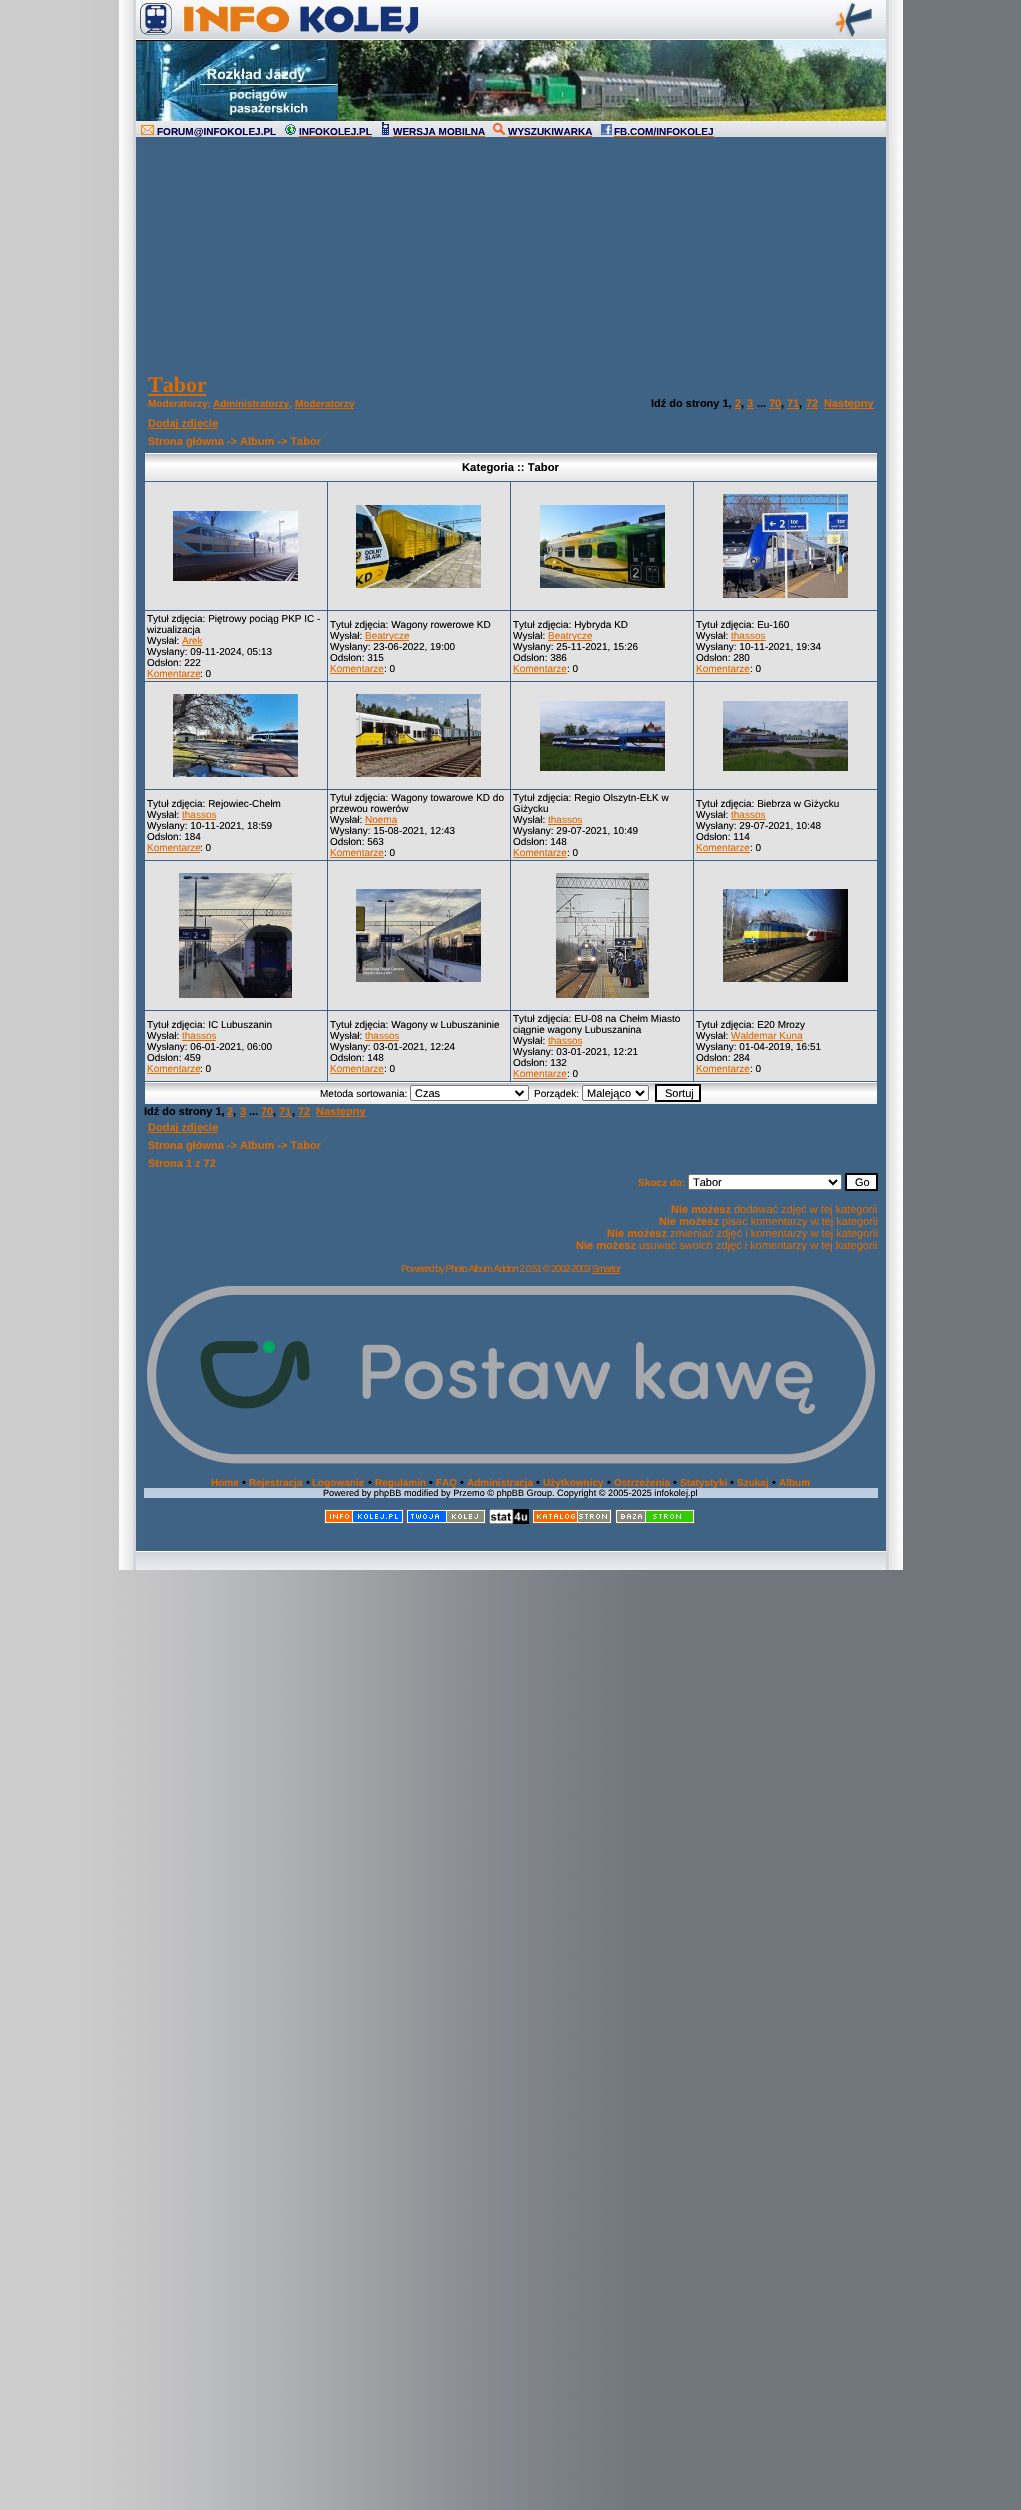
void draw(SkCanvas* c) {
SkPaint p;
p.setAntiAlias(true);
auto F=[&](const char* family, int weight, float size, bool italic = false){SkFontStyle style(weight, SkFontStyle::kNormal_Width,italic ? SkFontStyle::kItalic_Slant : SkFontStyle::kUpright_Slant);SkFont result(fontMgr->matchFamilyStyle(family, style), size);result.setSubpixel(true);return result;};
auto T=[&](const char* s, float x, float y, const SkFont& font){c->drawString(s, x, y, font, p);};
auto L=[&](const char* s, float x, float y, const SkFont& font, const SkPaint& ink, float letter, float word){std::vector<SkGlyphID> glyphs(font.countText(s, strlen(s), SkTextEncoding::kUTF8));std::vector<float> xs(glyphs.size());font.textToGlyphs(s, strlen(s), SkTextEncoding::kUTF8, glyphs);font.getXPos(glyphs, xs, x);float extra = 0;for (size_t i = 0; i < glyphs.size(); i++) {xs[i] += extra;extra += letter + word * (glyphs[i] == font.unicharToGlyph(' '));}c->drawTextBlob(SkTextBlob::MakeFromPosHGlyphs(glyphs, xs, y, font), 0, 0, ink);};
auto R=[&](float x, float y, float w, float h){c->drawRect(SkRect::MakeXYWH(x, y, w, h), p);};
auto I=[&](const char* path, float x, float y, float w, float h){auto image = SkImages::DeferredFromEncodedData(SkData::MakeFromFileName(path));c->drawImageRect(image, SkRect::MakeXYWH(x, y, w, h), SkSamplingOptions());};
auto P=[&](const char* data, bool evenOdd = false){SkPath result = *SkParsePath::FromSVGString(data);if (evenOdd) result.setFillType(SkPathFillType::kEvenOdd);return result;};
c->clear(0xffffffff);
I("1.png",0,0,1021,2510);
I("2.png",119,0,17,121);
I("3.png",136,0,750,40);
I("4.png",140,3,279,32);
I("5.png",338,40,548,81);
I("6.png",136,40,202,81);
I("7.png",886,0,17,121);
I("8.png",119,121,17,16);
I("9.png",136,121,750,16);
I("10.png",141,125,13,10);
auto f1 = F("Liberation Sans",700,10);
p.setColor(0xff000050);
T("FORUM@INFOKOLEJ.PL",157,135,f1);
I("11.png",285,124,11,11);
T("INFOKOLEJ.PL",299,135,f1);
p.setColor(0xffdd6900);
R(299,136,73,1);
I("12.png",382,122,7,13);
p.setColor(0xff000050);
T("WERSJA MOBILNA",393,135,f1);
p.setColor(0xffdd6900);
R(393,136,92,1);
I("13.png",493,123,12,12);
p.setColor(0xff000050);
T("WYSZUKIWARKA",508,135,f1);
p.setColor(0xffdd6900);
R(508,136,84,1);
I("14.png",601,124,11,11);
p.setColor(0xff000050);
T("FB.COM/INFOKOLEJ",614,135,f1);
p.setColor(0xffdd6900);
R(614,136,100,1);
I("15.png",886,121,17,16);
I("16.png",119,137,784,1414);
auto f2 = F("Liberation Serif",700,22);
T("Tabor",148,392,f2);
R(148,394,58,2);
T("Moderatorzy:",148,407,f1);
R(213,408,76,1);
T("Administratorzy,",213,407,f1);
R(295,408,59,1);
T("Moderatorzy",295,407,f1);
auto f3 = F("Liberation Sans",700,11);
p.setColor(0xff000000);
T("Idź do strony 1,",651,407,f3);
p.setColor(0xffdd6900);
T("2",735,407,f3);
p.setColor(0xff000000);
T(",",741,407,f3);
p.setColor(0xffdd6900);
R(735,408,6,1);
R(747,408,7,1);
T("3",747,407,f3);
p.setColor(0xff000000);
T("...",757,407,f3);
p.setColor(0xffdd6900);
T("70",769,407,f3);
p.setColor(0xff000000);
T(",",781,407,f3);
p.setColor(0xffdd6900);
R(769,408,12,1);
T("71",787,407,f3);
p.setColor(0xff000000);
T(",",799,407,f3);
p.setColor(0xffdd6900);
R(787,408,12,1);
R(806,408,12,1);
T("72",806,407,f3);
R(824,408,50,1);
T("Następny",824,407,f3);
R(148,428,70,1);
T("Dodaj zdjęcie",148,427,f3);
T("Strona główna -> Album -> Tabor",148,445,f3);
I("17.png",145,453,732,28);
auto f4 = F("Liberation Sans",700,11.25);
p.setColor(0xff000000);
T("Kategoria :: Tabor",462,471,f4);
p.setColor(0xffe2e2e2);
R(145,482,182,128);
I("18.png",173,511,125,70);
R(328,482,182,128);
I("19.png",356,505,125,83);
R(511,482,182,128);
I("20.png",540,505,125,83);
R(694,482,183,128);
I("21.png",723,494,125,104);
R(145,611,182,70);
auto f5 = F("Liberation Sans",400,10);
p.setColor(0xff000000);
T("Tytuł zdjęcia: Piętrowy pociąg PKP IC -",147,622,f5);
T("wizualizacja",147,633,f5);
T("Wysłał:",147,644,f5);
p.setColor(0xffdd6900);
T("Arek",182,644,f5);
R(182,645,20,1);
p.setColor(0xff000000);
T("Wysłany: 09-11-2024, 05:13",147,655,f5);
T("Odsłon: 222",147,666,f5);
p.setColor(0xffdd6900);
T("Komentarze",147,677,f5);
R(147,678,53,1);
p.setColor(0xff000000);
T(": 0",200,677,f5);
p.setColor(0xffe2e2e2);
R(328,611,182,70);
p.setColor(0xff000000);
T("Tytuł zdjęcia: Wagony rowerowe KD",330,628,f5);
T("Wysłał:",330,639,f5);
p.setColor(0xffdd6900);
R(365,640,44,1);
T("Beatrycze",365,639,f5);
p.setColor(0xff000000);
T("Wysłany: 23-06-2022, 19:00",330,650,f5);
T("Odsłon: 315",330,661,f5);
p.setColor(0xffdd6900);
T("Komentarze",330,672,f5);
R(330,673,54,1);
p.setColor(0xff000000);
T(": 0",384,672,f5);
p.setColor(0xffe2e2e2);
R(511,611,182,70);
p.setColor(0xff000000);
T("Tytuł zdjęcia: Hybryda KD",513,628,f5);
T("Wysłał:",513,639,f5);
p.setColor(0xffdd6900);
R(548,640,44,1);
T("Beatrycze",548,639,f5);
p.setColor(0xff000000);
T("Wysłany: 25-11-2021, 15:26",513,650,f5);
T("Odsłon: 386",513,661,f5);
p.setColor(0xffdd6900);
T("Komentarze",513,672,f5);
R(513,673,54,1);
p.setColor(0xff000000);
T(": 0",567,672,f5);
p.setColor(0xffe2e2e2);
R(694,611,183,70);
p.setColor(0xff000000);
T("Tytuł zdjęcia: Eu-160",696,628,f5);
T("Wysłał:",696,639,f5);
p.setColor(0xffdd6900);
T("thassos",731,639,f5);
R(731,640,35,1);
p.setColor(0xff000000);
T("Wysłany: 10-11-2021, 19:34",696,650,f5);
T("Odsłon: 280",696,661,f5);
p.setColor(0xffdd6900);
T("Komentarze",696,672,f5);
R(696,673,54,1);
p.setColor(0xff000000);
T(": 0",750,672,f5);
p.setColor(0xffe2e2e2);
R(145,682,182,107);
I("22.png",173,694,125,83);
R(328,682,182,107);
I("23.png",356,694,125,83);
R(511,682,182,107);
I("24.png",540,701,125,70);
R(694,682,183,107);
I("25.png",723,701,125,70);
R(145,790,182,70);
p.setColor(0xff000000);
T("Tytuł zdjęcia: Rejowiec-Chełm",147,807,f5);
T("Wysłał:",147,818,f5);
p.setColor(0xffdd6900);
T("thassos",182,818,f5);
R(182,819,34,1);
p.setColor(0xff000000);
T("Wysłany: 10-11-2021, 18:59",147,829,f5);
T("Odsłon: 184",147,840,f5);
p.setColor(0xffdd6900);
T("Komentarze",147,851,f5);
R(147,852,53,1);
p.setColor(0xff000000);
T(": 0",200,851,f5);
p.setColor(0xffe2e2e2);
R(328,790,182,70);
p.setColor(0xff000000);
T("Tytuł zdjęcia: Wagony towarowe KD do",330,801,f5);
T("przewou rowerów",330,812,f5);
T("Wysłał:",330,823,f5);
p.setColor(0xffdd6900);
T("Noema",365,823,f5);
R(365,824,32,1);
p.setColor(0xff000000);
T("Wysłany: 15-08-2021, 12:43",330,834,f5);
T("Odsłon: 563",330,845,f5);
p.setColor(0xffdd6900);
T("Komentarze",330,856,f5);
R(330,857,54,1);
p.setColor(0xff000000);
T(": 0",384,856,f5);
p.setColor(0xffe2e2e2);
R(511,790,182,70);
p.setColor(0xff000000);
T("Tytuł zdjęcia: Regio Olszytn-EŁK w",513,801,f5);
T("Giżycku",513,812,f5);
T("Wysłał:",513,823,f5);
p.setColor(0xffdd6900);
T("thassos",548,823,f5);
R(548,824,34,1);
p.setColor(0xff000000);
T("Wysłany: 29-07-2021, 10:49",513,834,f5);
T("Odsłon: 148",513,845,f5);
p.setColor(0xffdd6900);
T("Komentarze",513,856,f5);
R(513,857,54,1);
p.setColor(0xff000000);
T(": 0",567,856,f5);
p.setColor(0xffe2e2e2);
R(694,790,183,70);
p.setColor(0xff000000);
T("Tytuł zdjęcia: Biebrza w Giżycku",696,807,f5);
T("Wysłał:",696,818,f5);
p.setColor(0xffdd6900);
T("thassos",731,818,f5);
R(731,819,35,1);
p.setColor(0xff000000);
T("Wysłany: 29-07-2021, 10:48",696,829,f5);
T("Odsłon: 114",696,840,f5);
p.setColor(0xffdd6900);
T("Komentarze",696,851,f5);
R(696,852,54,1);
p.setColor(0xff000000);
T(": 0",750,851,f5);
p.setColor(0xffe2e2e2);
R(145,861,182,149);
I("26.png",179,873,113,125);
R(328,861,182,149);
I("27.png",356,889,125,93);
R(511,861,182,149);
I("28.png",556,873,93,125);
R(694,861,183,149);
I("29.png",723,889,125,93);
R(145,1011,182,70);
p.setColor(0xff000000);
T("Tytuł zdjęcia: IC Lubuszanin",147,1028,f5);
T("Wysłał:",147,1039,f5);
p.setColor(0xffdd6900);
T("thassos",182,1039,f5);
R(182,1040,34,1);
p.setColor(0xff000000);
T("Wysłany: 06-01-2021, 06:00",147,1050,f5);
T("Odsłon: 459",147,1061,f5);
p.setColor(0xffdd6900);
T("Komentarze",147,1072,f5);
R(147,1073,53,1);
p.setColor(0xff000000);
T(": 0",200,1072,f5);
p.setColor(0xffe2e2e2);
R(328,1011,182,70);
p.setColor(0xff000000);
T("Tytuł zdjęcia: Wagony w Lubuszaninie",330,1028,f5);
T("Wysłał:",330,1039,f5);
p.setColor(0xffdd6900);
T("thassos",365,1039,f5);
R(365,1040,34,1);
p.setColor(0xff000000);
T("Wysłany: 03-01-2021, 12:24",330,1050,f5);
T("Odsłon: 148",330,1061,f5);
p.setColor(0xffdd6900);
T("Komentarze",330,1072,f5);
R(330,1073,54,1);
p.setColor(0xff000000);
T(": 0",384,1072,f5);
p.setColor(0xffe2e2e2);
R(511,1011,182,70);
p.setColor(0xff000000);
T("Tytuł zdjęcia: EU-08 na Chełm Miasto",513,1022,f5);
T("ciągnie wagony Lubuszanina",513,1033,f5);
T("Wysłał:",513,1044,f5);
p.setColor(0xffdd6900);
T("thassos",548,1044,f5);
R(548,1045,34,1);
p.setColor(0xff000000);
T("Wysłany: 03-01-2021, 12:21",513,1055,f5);
T("Odsłon: 132",513,1066,f5);
p.setColor(0xffdd6900);
T("Komentarze",513,1077,f5);
R(513,1078,54,1);
p.setColor(0xff000000);
T(": 0",567,1077,f5);
p.setColor(0xffe2e2e2);
R(694,1011,183,70);
p.setColor(0xff000000);
T("Tytuł zdjęcia: E20 Mrozy",696,1028,f5);
T("Wysłał:",696,1039,f5);
p.setColor(0xffdd6900);
T("Waldemar Kuna",731,1039,f5);
R(731,1040,72,1);
p.setColor(0xff000000);
T("Wysłany: 01-04-2019, 16:51",696,1050,f5);
T("Odsłon: 284",696,1061,f5);
p.setColor(0xffdd6900);
T("Komentarze",696,1072,f5);
R(696,1073,54,1);
p.setColor(0xff000000);
T(": 0",750,1072,f5);
I("30.png",145,1082,732,22);
T("Metoda sortowania:",320,1097,f5);
p.setColor(0xffffffff);
c->drawRoundRect(SkRect::MakeXYWH(410.5,1085.5,118,15),1.5,1.5,p);
p.setStroke(true);
p.setStrokeWidth(1);
p.setColor(0xff767676);
c->drawRoundRect(SkRect::MakeXYWH(410.5,1085.5,118,15),1.5,1.5,p);
p.setStrokeWidth(2);
p.setColor(0xff000000);
c->drawPath(P("M515.5 1091l4 4l4-4"),p);
auto f6 = F("Liberation Sans",400,11);
p.setStroke(false);
T("Czas",415,1097,f6);
T("Porządek:",534,1097,f5);
p.setColor(0xffffffff);
c->drawRoundRect(SkRect::MakeXYWH(582.5,1085.5,66,15),1.5,1.5,p);
p.setStroke(true);
p.setStrokeWidth(1);
p.setColor(0xff767676);
c->drawRoundRect(SkRect::MakeXYWH(582.5,1085.5,66,15),1.5,1.5,p);
p.setStrokeWidth(2);
p.setColor(0xff000000);
c->drawPath(P("M636 1091l4 4l4-4"),p);
p.setStroke(false);
T("Malejąco",587,1097,f6);
p.setColor(0xfffafafa);
c->drawRect(SkRect::MakeXYWH(656,1085,44,16),p);
p.setStroke(true);
p.setColor(0xff000000);
c->drawRect(SkRect::MakeXYWH(656,1085,44,16),p);
p.setStroke(false);
T("Sortuj",665,1097,f6);
T("Idź do strony 1,",144,1115,f3);
p.setColor(0xffdd6900);
T("2",227,1115,f3);
p.setColor(0xff000000);
T(",",233,1115,f3);
p.setColor(0xffdd6900);
R(227,1116,6,1);
R(240,1116,6,1);
T("3",240,1115,f3);
p.setColor(0xff000000);
T("...",249,1115,f3);
p.setColor(0xffdd6900);
T("70",261,1115,f3);
p.setColor(0xff000000);
T(",",273,1115,f3);
p.setColor(0xffdd6900);
R(261,1116,12,1);
T("71",279,1115,f3);
p.setColor(0xff000000);
T(",",292,1115,f3);
p.setColor(0xffdd6900);
R(279,1116,13,1);
R(298,1116,12,1);
T("72",298,1115,f3);
R(316,1116,50,1);
T("Następny",316,1115,f3);
R(148,1132,70,1);
T("Dodaj zdjęcie",148,1131,f3);
T("Strona główna -> Album -> Tabor",148,1149,f3);
T("Strona 1 z 72",148,1167,f3);
T("Skocz do:",638,1186,f1);
p.setColor(0xffffffff);
c->drawRoundRect(SkRect::MakeXYWH(688.5,1174.5,153,15),1.5,1.5,p);
p.setStroke(true);
p.setStrokeWidth(1);
p.setColor(0xff767676);
c->drawRoundRect(SkRect::MakeXYWH(688.5,1174.5,153,15),1.5,1.5,p);
p.setStrokeWidth(2);
p.setColor(0xff000000);
c->drawPath(P("M829 1180l4 4l4-4"),p);
p.setStroke(false);
T("Tabor",693,1186,f6);
p.setColor(0xfffafafa);
c->drawRect(SkRect::MakeXYWH(846,1174,31,16),p);
p.setStroke(true);
p.setColor(0xff000000);
c->drawRect(SkRect::MakeXYWH(846,1174,31,16),p);
p.setStroke(false);
T("Go",855,1186,f6);
p.setColor(0xffdd6900);
T("Nie możesz",671,1213,f3);
T("dodawać zdjęć w tej kategorii",734,1213,f6);
T("Nie możesz",659,1225,f3);
T("pisać komentarzy w tej kategorii",722,1225,f6);
T("Nie możesz",607,1237,f3);
T("zmieniać zdjęć i komentarzy w tej kategorii",670,1237,f6);
T("Nie możesz",576,1249,f3);
T("usuwać swoich zdjęć i komentarzy w tej kategorii",639,1249,f6);
L("Powered by Photo Album Addon 2.0.51 © 2002-2003 Smartor",401,1272,f5,p,-1,0);
R(592,1273,28,1);
I("31.png",147,1286,728,178);
T("Home",211,1486,f1);
p.setColor(0xff000000);
T("•",242,1486,f3);
I("32.png",144,1488,734,10);
p.setColor(0xffdd6900);
T("Rejestracja",249,1486,f1);
p.setColor(0xff000000);
T("•",306,1486,f3);
p.setColor(0xffdd6900);
T("Logowanie",312,1486,f1);
p.setColor(0xff000000);
T("•",368,1486,f3);
p.setColor(0xffdd6900);
T("Regulamin",375,1486,f1);
p.setColor(0xff000000);
T("•",429,1486,f3);
p.setColor(0xffdd6900);
T("FAQ",436,1486,f1);
p.setColor(0xff000000);
T("•",460,1486,f3);
p.setColor(0xffdd6900);
T("Administracja",467,1486,f1);
p.setColor(0xff000000);
T("•",536,1486,f3);
p.setColor(0xffdd6900);
T("Użytkownicy",543,1486,f1);
p.setColor(0xff000000);
T("•",607,1486,f3);
p.setColor(0xffdd6900);
T("Ostrzeżenia",614,1486,f1);
p.setColor(0xff000000);
T("•",673,1486,f3);
p.setColor(0xffdd6900);
T("Statystyki",680,1486,f1);
p.setColor(0xff000000);
T("•",730,1486,f3);
p.setColor(0xffdd6900);
T("Szukaj",737,1486,f1);
p.setColor(0xff000000);
T("•",772,1486,f3);
p.setColor(0xffdd6900);
T("Album",779,1486,f1);
auto f7 = F("Liberation Sans",400,9.15);
p.setColor(0xff000000);
T("Powered by phpBB modified by Przemo © phpBB Group. Copyright © 2005-2025 infokolej.pl",323,1496,f7);
I("33.png",324,1509,80,15);
I("34.png",406,1509,80,15);
I("35.png",489,1509,40,15);
I("36.png",532,1509,80,15);
I("37.png",615,1509,80,15);
I("38.png",119,1551,17,19);
I("39.png",136,1551,750,19);
I("40.png",886,1551,17,19);
}
